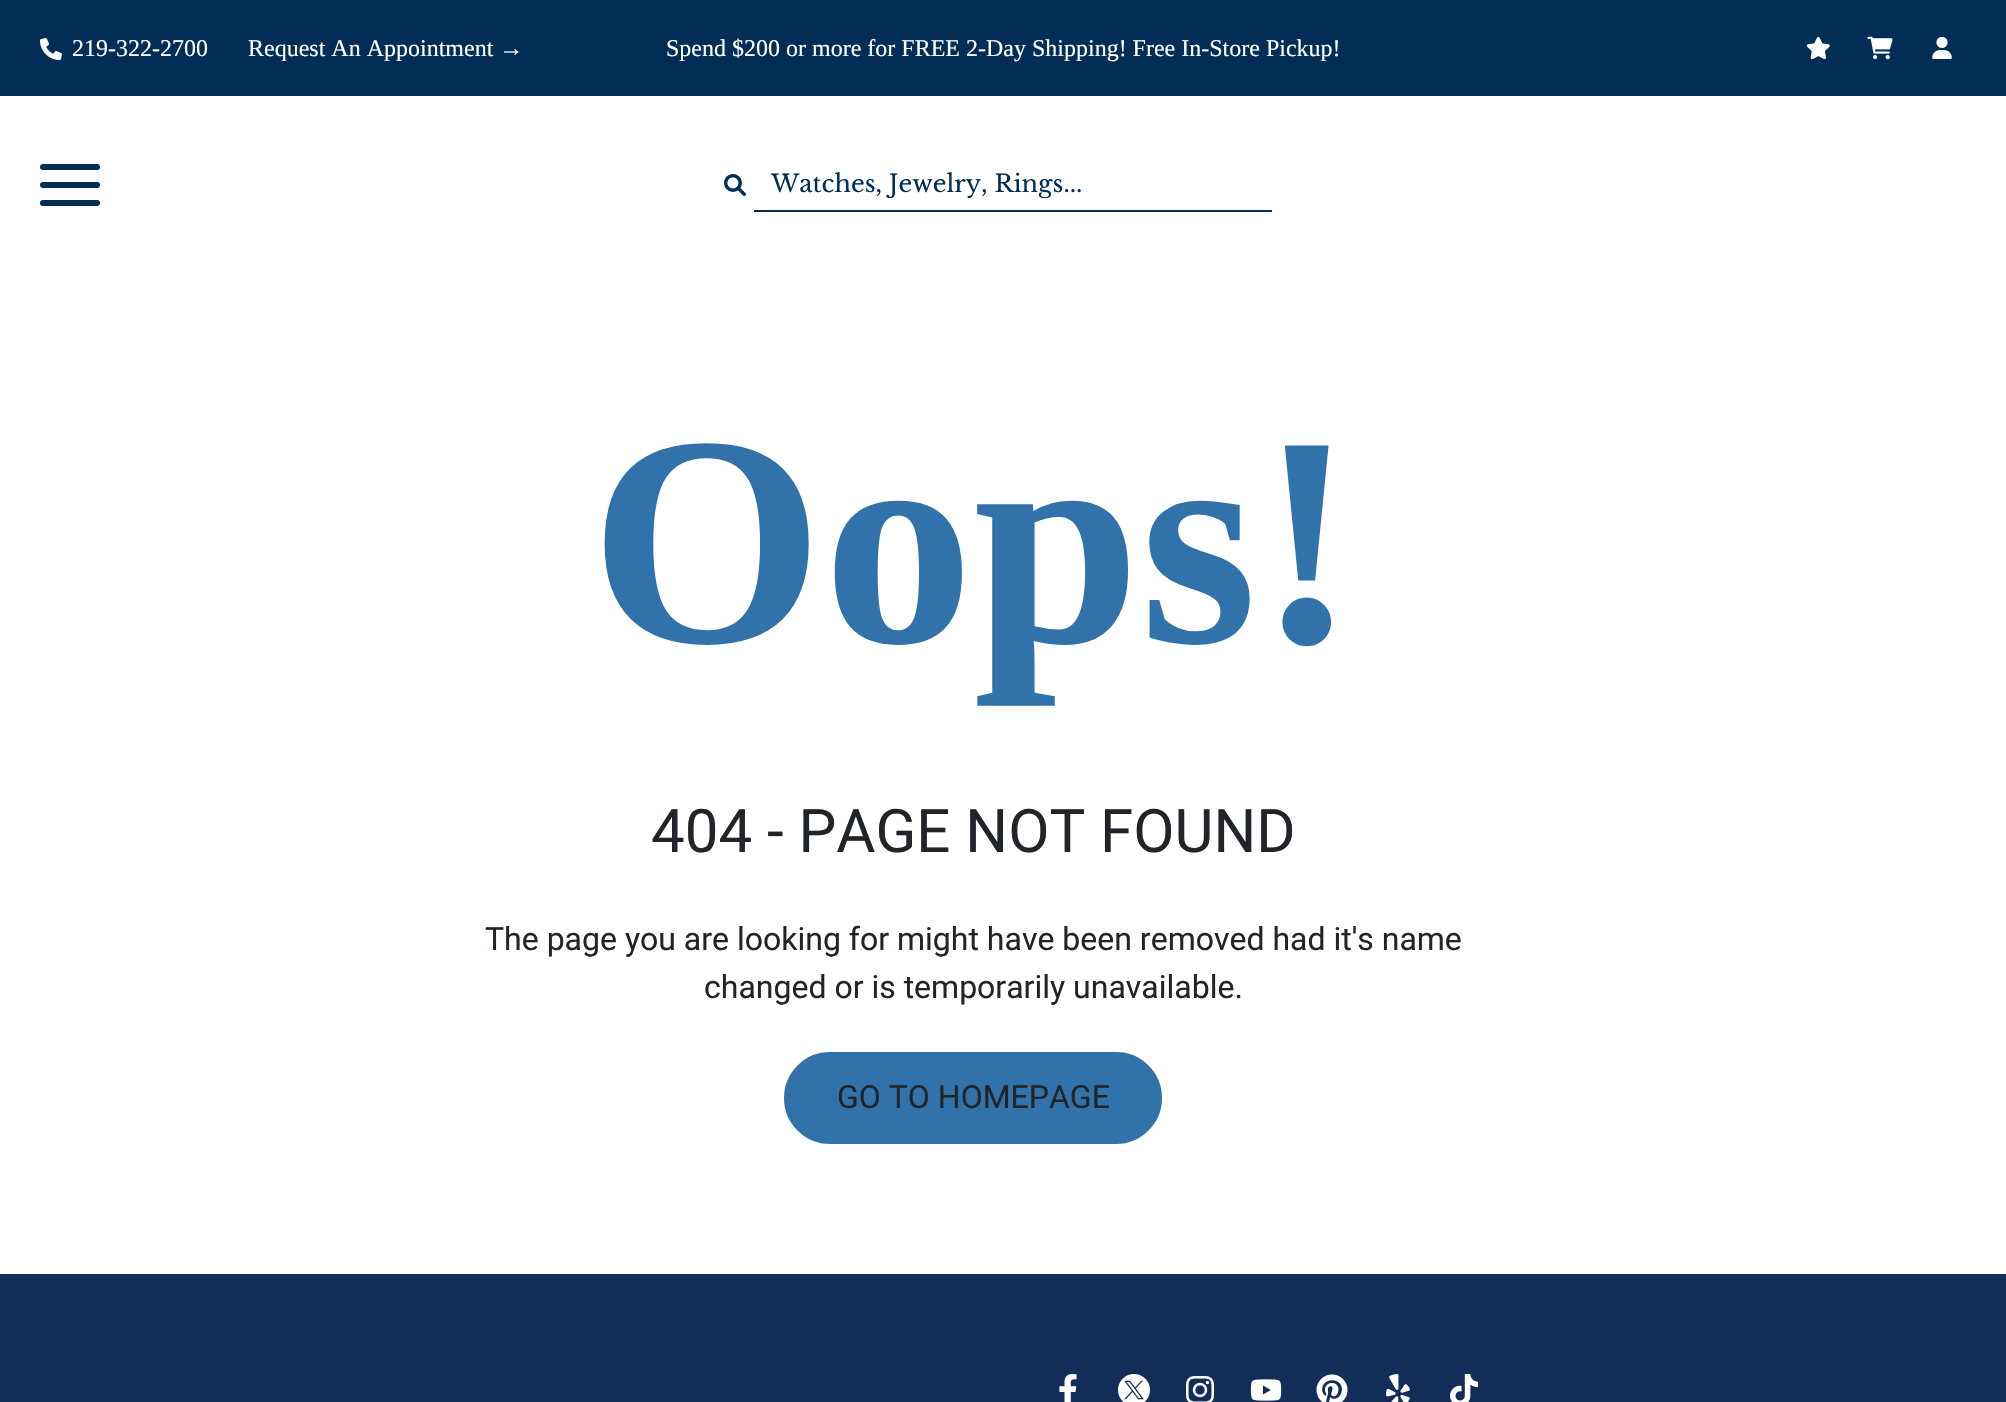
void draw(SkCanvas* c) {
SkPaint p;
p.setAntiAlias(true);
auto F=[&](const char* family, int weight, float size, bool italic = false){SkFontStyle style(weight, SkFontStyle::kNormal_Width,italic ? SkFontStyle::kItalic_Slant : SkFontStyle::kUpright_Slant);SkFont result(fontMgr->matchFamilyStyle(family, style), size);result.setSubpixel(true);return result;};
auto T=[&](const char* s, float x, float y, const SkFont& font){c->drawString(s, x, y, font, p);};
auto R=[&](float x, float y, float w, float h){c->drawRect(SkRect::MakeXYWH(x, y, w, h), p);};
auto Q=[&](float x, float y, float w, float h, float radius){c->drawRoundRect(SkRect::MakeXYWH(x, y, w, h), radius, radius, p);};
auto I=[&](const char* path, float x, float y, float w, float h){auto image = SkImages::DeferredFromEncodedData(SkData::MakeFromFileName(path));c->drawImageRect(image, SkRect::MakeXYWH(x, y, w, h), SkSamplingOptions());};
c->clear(0xffffffff);
p.setColor(0xff022d57);
R(0,0,2006,96);
I("1.png",40,38,22,22);
auto f1 = F("Liberation Serif",400,24);
p.setColor(0xffffffff);
T("219-322-2700",72,56,f1);
T("Request An Appointment →",248,56,f1);
T("Spend $200 or more for FREE 2-Day Shipping! Free In-Store Pickup!",666,56,f1);
I("2.png",1806,37,24,22);
I("3.png",1867,36,26,24);
I("4.png",1932,37,20,22);
p.setColor(0xff022d57);
Q(40,164,60,6,3);
Q(40,182,60,6,3);
Q(40,200,60,6,3);
I("5.png",724,174,22,22);
R(754,210,518,2);
c->save();
c->clipRect(SkRect::MakeXYWH(770,168,484,30));
auto f2 = F("Libre Baskerville",400,24);
T("Watches, Jewelry, Rings...",771,192,f2);
c->restore();
auto f3 = F("Liberation Serif",700,300);
p.setColor(0xff3172ab);
T("Oops!",590,642,f3);
auto f4 = F("Roboto",400,60);
p.setColor(0xff212529);
T("404 - PAGE NOT FOUND",651,852,f4);
auto f5 = F("Roboto",400,32);
T("The page you are looking for might have been removed had it's name",485,950,f5);
T("changed or is temporarily unavailable.",704,998,f5);
p.setColor(0xff3172ab);
c->drawRoundRect(SkRect::MakeXYWH(785,1053,376,90),45,45,p);
p.setStroke(true);
p.setStrokeWidth(2);
c->drawRoundRect(SkRect::MakeXYWH(785,1053,376,90),45,45,p);
p.setStroke(false);
p.setColor(0xff212529);
T("GO TO HOMEPAGE",837,1108,f5);
p.setColor(0xff122d57);
R(0,1274,2006,128);
I("6.png",1059,1374,18,28);
I("7.png",1118,1374,32,28);
I("8.png",1186,1376,28,26);
I("9.png",1250,1379,32,22);
I("10.png",1316,1374,32,28);
I("11.png",1386,1374,24,28);
I("12.png",1450,1374,28,28);
}
